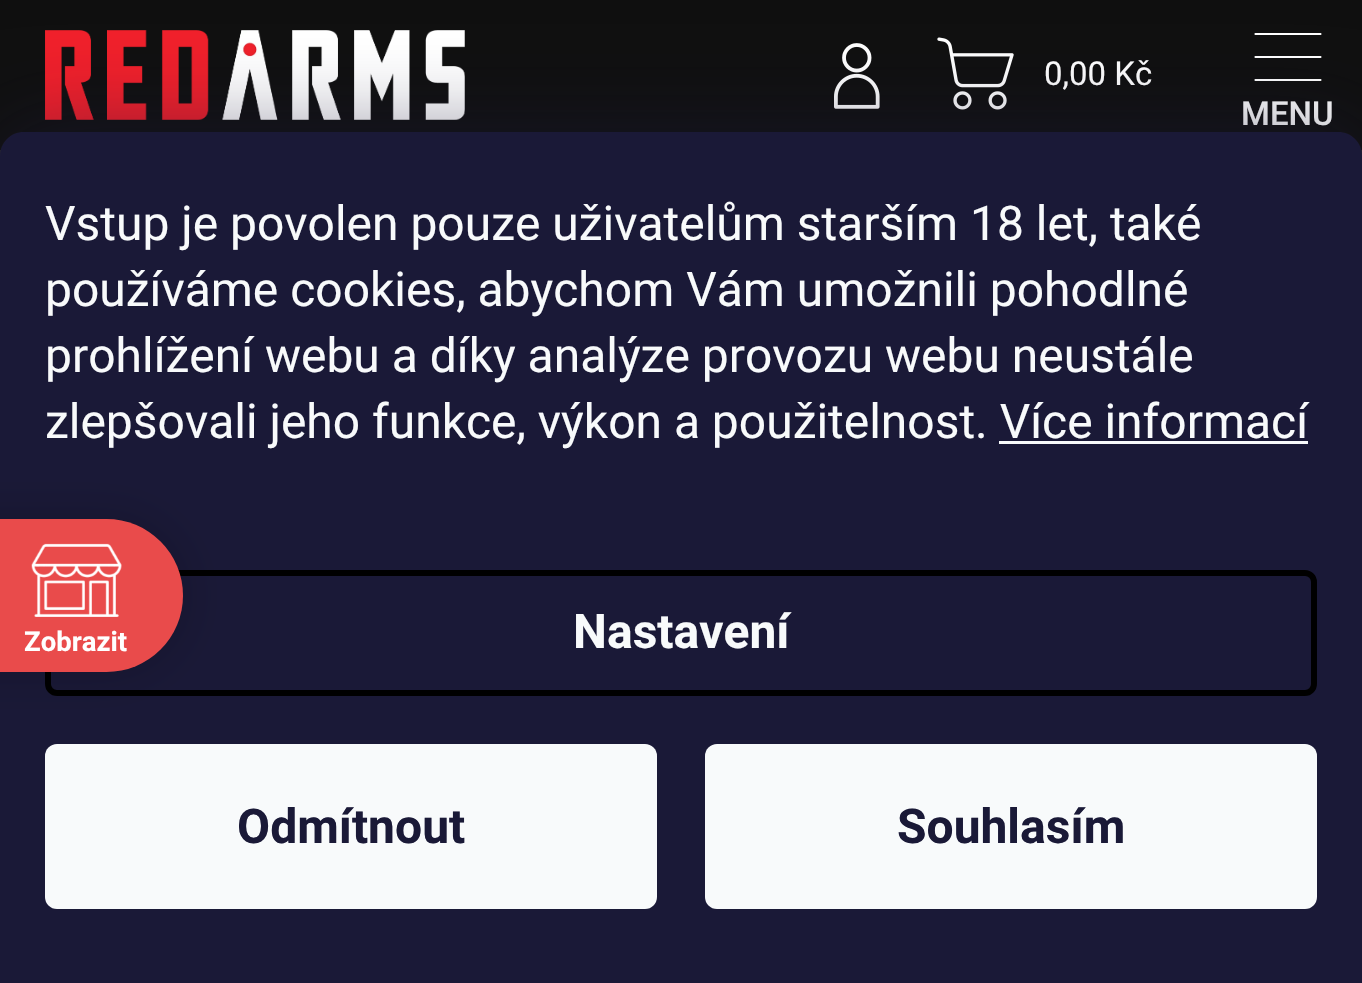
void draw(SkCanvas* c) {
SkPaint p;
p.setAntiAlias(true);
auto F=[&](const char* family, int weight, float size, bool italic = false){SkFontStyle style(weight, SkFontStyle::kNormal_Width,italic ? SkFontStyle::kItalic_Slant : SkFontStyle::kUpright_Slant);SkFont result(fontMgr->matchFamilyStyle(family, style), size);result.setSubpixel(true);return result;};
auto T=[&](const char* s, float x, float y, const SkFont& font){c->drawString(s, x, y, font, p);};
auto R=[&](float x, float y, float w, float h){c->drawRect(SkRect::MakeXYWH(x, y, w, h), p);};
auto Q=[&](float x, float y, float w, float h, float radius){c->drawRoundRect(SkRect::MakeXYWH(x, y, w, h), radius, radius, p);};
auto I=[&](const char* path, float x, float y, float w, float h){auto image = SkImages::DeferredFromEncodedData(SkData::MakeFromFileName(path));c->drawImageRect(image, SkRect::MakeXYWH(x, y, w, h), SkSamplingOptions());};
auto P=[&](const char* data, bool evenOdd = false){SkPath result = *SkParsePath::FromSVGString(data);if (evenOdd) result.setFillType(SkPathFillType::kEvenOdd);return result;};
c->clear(0xff292929);
p.setColor(0xff0f0f0f);
R(0,0,1362,150);
I("1.png",45,30,420,90);
I("2.png",834,43,46,66);
I("3.png",937,37,77,73);
auto f1 = F("Roboto",400,33);
p.setColor(0xffffffff);
T("0,00 Kč",1044,85,f1);
I("4.png",1254,33,68,48);
auto f2 = F("Roboto",500,33);
T("MENU",1241,125,f2);
p.setColor(0x801b1939);
p.setMaskFilter(SkMaskFilter::MakeBlur(kNormal_SkBlurStyle, 45));
c->drawRoundRect(SkRect::MakeXYWH(0,132,1362,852),24,24,p);
p.setMaskFilter(nullptr);
p.setColor(0xff1a1937);
c->drawPath(P("M24 132h1314c13.5 0 24 10.5 24 24v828h-1362v-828c0-13.5 10.5-24 24-24z"),p);
auto f3 = F("Roboto",400,48);
p.setColor(0xfff8fafb);
T("Vstup je povolen pouze uživatelům starším 18 let, také",45,240,f3);
T("používáme cookies, abychom Vám umožnili pohodlné",45,306,f3);
T("prohlížení webu a díky analýze provozu webu neustále",45,372,f3);
T("zlepšovali jeho funkce, výkon a použitelnost. Více informací",45,438,f3);
R(999,441,309,3);
p.setStroke(true);
p.setStrokeWidth(6);
p.setColor(0xff000000);
c->drawRoundRect(SkRect::MakeXYWH(48,573,1266,120),9,9,p);
auto f4 = F("Roboto",700,48);
p.setStroke(false);
p.setColor(0xfff8fafb);
T("Nastavení",573,648,f4);
Q(45,744,612,165,12);
p.setColor(0xff1a1937);
T("Odmítnout",237,843,f4);
p.setColor(0xfff8fafb);
Q(705,744,612,165,12);
p.setColor(0xff1a1937);
T("Souhlasím",897,843,f4);
p.setColor(0x33000000);
p.setMaskFilter(SkMaskFilter::MakeBlur(kNormal_SkBlurStyle, 22.5));
c->drawRoundRect(SkRect::MakeXYWH(-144,519,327,153),76.5,76.5,p);
p.setMaskFilter(nullptr);
p.setColor(0xffe94b4b);
Q(-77,519,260,153,76.5);
I("5.png",31,543,91,74);
auto f5 = F("Roboto",700,27.5);
p.setColor(0xffffffff);
T("Zobrazit",24,651,f5);
}
